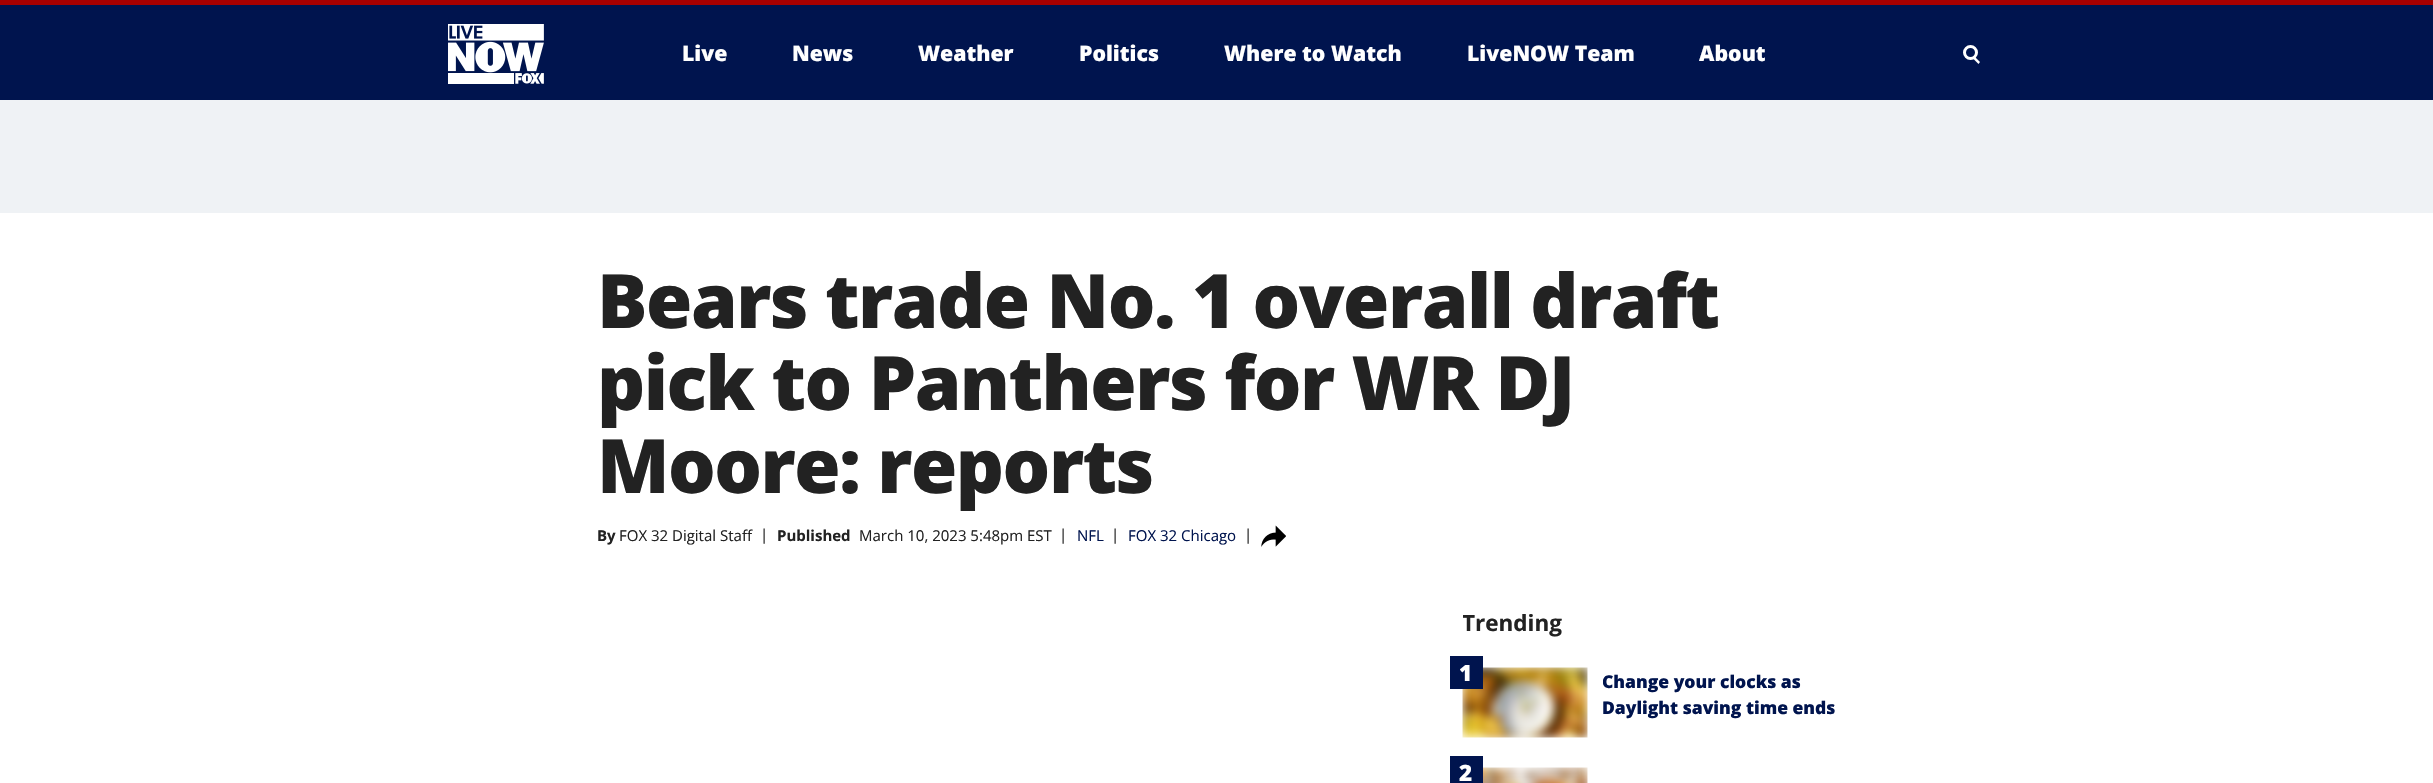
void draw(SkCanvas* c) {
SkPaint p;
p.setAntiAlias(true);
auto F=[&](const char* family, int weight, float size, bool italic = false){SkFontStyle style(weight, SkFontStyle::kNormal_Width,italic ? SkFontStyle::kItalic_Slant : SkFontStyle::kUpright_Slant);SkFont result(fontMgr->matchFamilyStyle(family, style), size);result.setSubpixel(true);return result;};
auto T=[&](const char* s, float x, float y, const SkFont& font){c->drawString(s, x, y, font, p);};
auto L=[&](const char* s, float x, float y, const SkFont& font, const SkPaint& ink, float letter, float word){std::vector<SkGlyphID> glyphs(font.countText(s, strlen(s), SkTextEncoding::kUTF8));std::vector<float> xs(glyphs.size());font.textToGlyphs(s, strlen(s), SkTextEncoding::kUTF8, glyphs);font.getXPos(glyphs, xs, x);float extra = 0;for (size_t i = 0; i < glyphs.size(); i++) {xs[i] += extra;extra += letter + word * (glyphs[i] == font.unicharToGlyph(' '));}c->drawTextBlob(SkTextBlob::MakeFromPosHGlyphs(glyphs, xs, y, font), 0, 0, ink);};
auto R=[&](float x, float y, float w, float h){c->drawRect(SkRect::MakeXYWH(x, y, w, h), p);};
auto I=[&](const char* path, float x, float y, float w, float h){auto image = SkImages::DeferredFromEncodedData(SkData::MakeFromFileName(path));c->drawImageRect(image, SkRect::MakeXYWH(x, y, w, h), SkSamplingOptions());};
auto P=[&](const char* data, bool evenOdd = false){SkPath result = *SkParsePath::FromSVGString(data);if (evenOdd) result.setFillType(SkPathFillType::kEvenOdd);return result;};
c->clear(0xffffffff);
p.setColor(0xff00144e);
R(0,5,2433,95);
p.setColor(0xffa70000);
R(0,0,2433,5);
I("1.png",448,24,96,60);
auto f1 = F("Open Sans",800,21.25);
p.setColor(0xffffffff);
T("Live",682,61,f1);
T("News",792,61,f1);
T("Weather",918,61,f1);
T("Politics",1079,61,f1);
T("Where to Watch",1224,61,f1);
T("LiveNOW Team",1467,61,f1);
T("About",1699,61,f1);
p.setStroke(true);
p.setStrokeWidth(3);
c->drawCircle(1970.5,52.5,6,p);
p.setStroke(false);
c->drawPath(P("M1974 56l6 6l-1.5 2l-6-6z"),p);
p.setColor(0xffeff2f5);
R(0,100,2433,113);
auto f2 = F("Open Sans",800,75);
p.setColor(0xff222222);
L("Bears trade No. 1 overall draft",597,328,f2,p,-1.5,0);
L("pick to Panthers for WR DJ",597,410,f2,p,-1.5,0);
L("Moore: reports",597,493,f2,p,-1.5,0);
auto f3 = F("Open Sans",700,15);
T("By",597,541,f3);
auto f4 = F("Open Sans",400,15);
T("FOX 32 Digital Staff",619,541,f4);
T("|",760,540,f4);
T("Published",777,541,f3);
T("March 10, 2023 5:48pm EST",859,541,f4);
T("|",1059,540,f4);
p.setColor(0xff00144e);
T("NFL",1077,541,f4);
p.setColor(0xff222222);
T("|",1111,540,f4);
p.setColor(0xff00144e);
T("FOX 32 Chicago",1128,541,f4);
p.setColor(0xff222222);
T("|",1244,540,f4);
I("2.png",1261,525,25,22);
c->save();
c->clipRect(SkRect::MakeXYWH(1463,608,375,30));
auto f5 = F("Open Sans",700,22.5);
T("Trending",1462,631,f5);
c->restore();
I("3.png",1462,667,126,71);
p.setColor(0xff00144e);
R(1450,656,33,33);
auto f6 = F("Open Sans",800,22.5);
p.setColor(0xffffffff);
T("1",1459,681,f6);
c->save();
c->clipRect(SkRect::MakeXYWH(1603,668,235,55));
auto f7 = F("Open Sans",800,17.5);
p.setColor(0xff00144e);
T("Change your clocks as",1602,688,f7);
c->restore();
T("Daylight saving time ends",1602,714,f7);
R(1450,756,33,27);
p.setColor(0xffffffff);
T("2",1459,781,f6);
I("4.png",1483,767,105,16);
}
